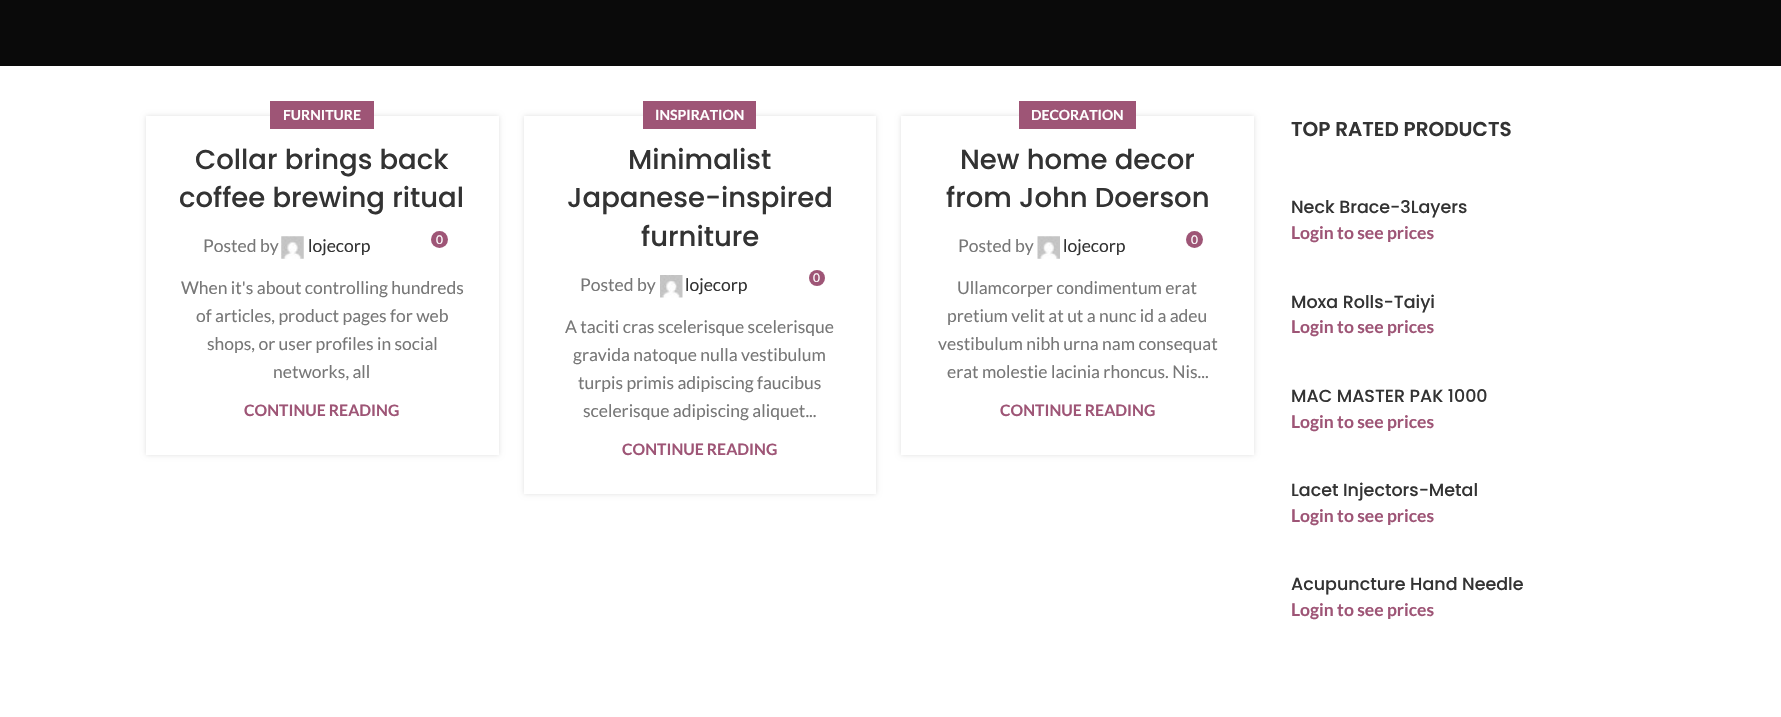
void draw(SkCanvas* c) {
SkPaint p;
p.setAntiAlias(true);
auto F=[&](const char* family, int weight, float size, bool italic = false){SkFontStyle style(weight, SkFontStyle::kNormal_Width,italic ? SkFontStyle::kItalic_Slant : SkFontStyle::kUpright_Slant);SkFont result(fontMgr->matchFamilyStyle(family, style), size);result.setSubpixel(true);return result;};
auto T=[&](const char* s, float x, float y, const SkFont& font){c->drawString(s, x, y, font, p);};
auto R=[&](float x, float y, float w, float h){c->drawRect(SkRect::MakeXYWH(x, y, w, h), p);};
auto I=[&](const char* path, float x, float y, float w, float h){auto image = SkImages::DeferredFromEncodedData(SkData::MakeFromFileName(path));c->drawImageRect(image, SkRect::MakeXYWH(x, y, w, h), SkSamplingOptions());};
c->clear(0xffffffff);
p.setColor(0xff0a0a0a);
R(0,0,1781,66);
p.setColor(0x1f000000);
p.setMaskFilter(SkMaskFilter::MakeBlur(kNormal_SkBlurStyle, 2.5));
c->drawRect(SkRect::MakeXYWH(146,116,353,339),p);
p.setMaskFilter(nullptr);
p.setColor(0xffffffff);
R(146,116,353,339);
p.setColor(0xff9e5576);
R(270,101,104,28);
auto f1 = F("Lato",700,14);
p.setColor(0xffffffff);
T("FURNITURE",283,120,f1);
auto f2 = F("Poppins",500,27.5);
p.setColor(0xff333333);
T("Collar brings back",195,169,f2);
T("coffee brewing ritual",179,207,f2);
auto f3 = F("Lato",400,17.5);
p.setColor(0xff777777);
T("Posted by",203,252,f3);
I("1.png",281,236,23,23);
p.setColor(0xff333333);
T("lojecorp",308,252,f3);
p.setColor(0xff9e5576);
c->drawCircle(439.5,239.5,8.5,p);
auto f4 = F("Lato",400,12);
p.setColor(0xffffffff);
T("0",436,244,f4);
p.setColor(0xff777777);
T("When it's about controlling hundreds",181,294,f3);
T("of articles, product pages for web",196,322,f3);
T("shops, or user profiles in social",207,350,f3);
T("networks, all",273,378,f3);
auto f5 = F("Lato",700,15.75);
p.setColor(0xff9e5576);
T("CONTINUE READING",244,416,f5);
p.setColor(0x1f000000);
p.setMaskFilter(SkMaskFilter::MakeBlur(kNormal_SkBlurStyle, 2.5));
c->drawRect(SkRect::MakeXYWH(524,116,352,378),p);
p.setMaskFilter(nullptr);
p.setColor(0xffffffff);
R(524,116,352,378);
p.setColor(0xff9e5576);
R(643,101,113,28);
p.setColor(0xffffffff);
T("INSPIRATION",655,120,f1);
p.setColor(0xff333333);
T("Minimalist",628,169,f2);
T("Japanese-inspired",567,207,f2);
T("furniture",641,246,f2);
p.setColor(0xff777777);
T("Posted by",580,291,f3);
I("2.png",660,275,23,23);
p.setColor(0xff333333);
T("lojecorp",685,291,f3);
p.setColor(0xff9e5576);
c->drawCircle(817,278,8,p);
p.setColor(0xffffffff);
T("0",813,282,f4);
p.setColor(0xff777777);
T("A taciti cras scelerisque scelerisque",565,333,f3);
T("gravida natoque nulla vestibulum",573,361,f3);
T("turpis primis adipiscing faucibus",578,389,f3);
T("scelerisque adipiscing aliquet...",583,417,f3);
p.setColor(0xff9e5576);
T("CONTINUE READING",622,455,f5);
p.setColor(0x1f000000);
p.setMaskFilter(SkMaskFilter::MakeBlur(kNormal_SkBlurStyle, 2.5));
c->drawRect(SkRect::MakeXYWH(901,116,353,339),p);
p.setMaskFilter(nullptr);
p.setColor(0xffffffff);
R(901,116,353,339);
p.setColor(0xff9e5576);
R(1019,101,117,28);
p.setColor(0xffffffff);
T("DECORATION",1031,120,f1);
p.setColor(0xff333333);
T("New home decor",960,169,f2);
T("from John Doerson",946,207,f2);
p.setColor(0xff777777);
T("Posted by",958,252,f3);
I("3.png",1037,236,23,23);
p.setColor(0xff333333);
T("lojecorp",1063,252,f3);
p.setColor(0xff9e5576);
c->drawCircle(1194.5,239.5,8.5,p);
p.setColor(0xffffffff);
T("0",1191,244,f4);
p.setColor(0xff777777);
T("Ullamcorper condimentum erat",957,294,f3);
T("pretium velit at ut a nunc id a adeu",947,322,f3);
T("vestibulum nibh urna nam consequat",938,350,f3);
T("erat molestie lacinia rhoncus. Nis...",947,378,f3);
p.setColor(0xff9e5576);
T("CONTINUE READING",1000,416,f5);
auto f6 = F("Poppins",600,20);
p.setColor(0xff333333);
T("TOP RATED PRODUCTS",1291,136,f6);
auto f7 = F("Poppins",500,17.5);
T("Neck Brace-3Layers",1291,213,f7);
auto f8 = F("Lato",700,17.5);
p.setColor(0xff9e5576);
T("Login to see prices",1291,239,f8);
p.setColor(0xff333333);
T("Moxa Rolls-Taiyi",1291,308,f7);
p.setColor(0xff9e5576);
T("Login to see prices",1291,333,f8);
p.setColor(0xff333333);
T("MAC MASTER PAK 1000",1291,402,f7);
p.setColor(0xff9e5576);
T("Login to see prices",1291,428,f8);
p.setColor(0xff333333);
T("Lacet Injectors-Metal",1291,496,f7);
p.setColor(0xff9e5576);
T("Login to see prices",1291,522,f8);
p.setColor(0xff333333);
T("Acupuncture Hand Needle",1291,590,f7);
p.setColor(0xff9e5576);
T("Login to see prices",1291,616,f8);
}
